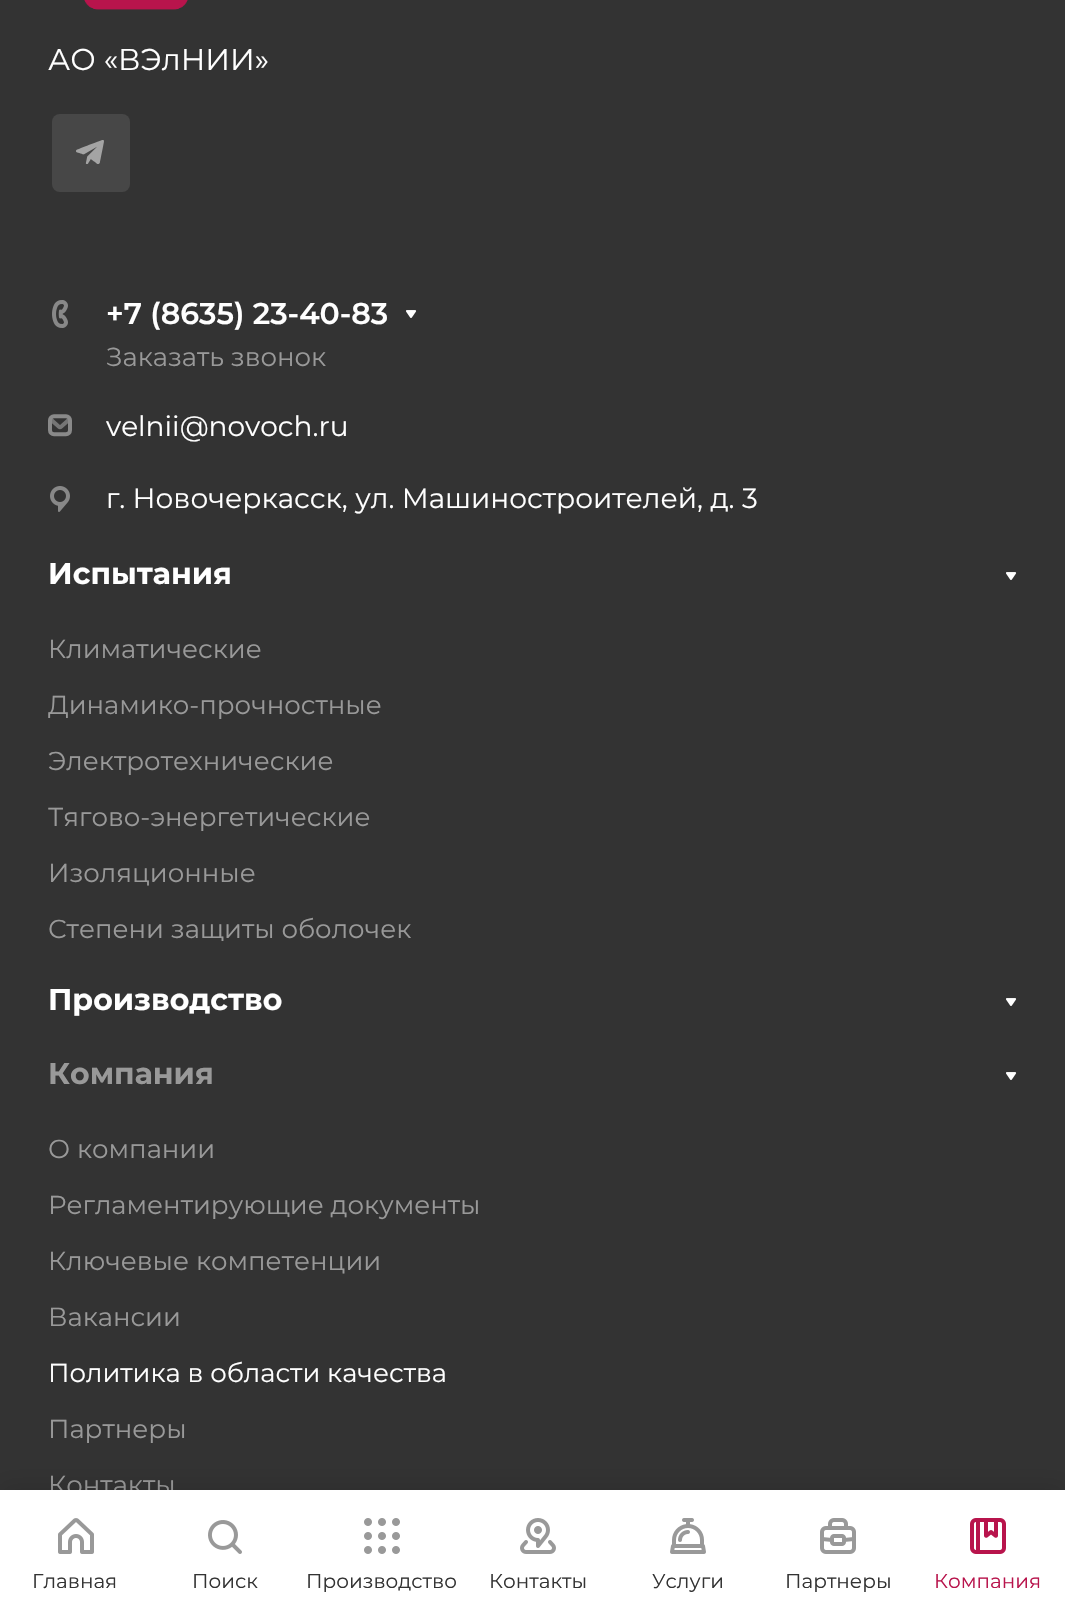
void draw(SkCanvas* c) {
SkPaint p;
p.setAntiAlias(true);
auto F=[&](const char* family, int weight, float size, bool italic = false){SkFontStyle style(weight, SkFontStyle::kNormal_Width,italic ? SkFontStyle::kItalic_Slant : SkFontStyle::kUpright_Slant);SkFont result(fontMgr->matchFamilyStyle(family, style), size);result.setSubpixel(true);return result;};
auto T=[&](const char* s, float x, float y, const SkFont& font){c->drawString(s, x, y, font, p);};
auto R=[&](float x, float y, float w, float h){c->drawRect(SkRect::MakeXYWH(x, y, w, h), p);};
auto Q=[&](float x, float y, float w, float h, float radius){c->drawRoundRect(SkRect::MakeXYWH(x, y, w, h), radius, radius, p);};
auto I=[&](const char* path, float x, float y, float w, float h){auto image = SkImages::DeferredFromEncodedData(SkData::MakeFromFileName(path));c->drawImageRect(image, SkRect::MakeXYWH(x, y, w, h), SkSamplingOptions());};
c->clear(0xff333333);
I("1.png",84,0,104,10);
auto f1 = F("Montserrat",400,30);
p.setColor(0xffffffff);
T("АО «ВЭлНИИ»",48,70,f1);
p.setColor(0xff474747);
Q(52,114,78,78,8);
I("2.png",76,140,28,24);
I("3.png",52,300,16,28);
auto f2 = F("Montserrat",600,30);
p.setColor(0xffffffff);
T("+7 (8635) 23-40-83",106,324,f2);
I("4.png",406,310,11,8);
auto f3 = F("Montserrat",400,26);
p.setColor(0xff999999);
T("Заказать звонок",106,366,f3);
I("5.png",48,414,24,23);
auto f4 = F("Montserrat",400,28);
p.setColor(0xffffffff);
T("velnii@novoch.ru",106,436,f4);
I("6.png",50,486,20,26);
T("г. Новочеркасск, ул. Машиностроителей, д. 3",106,508,f4);
auto f5 = F("Montserrat",700,30);
T("Испытания",48,584,f5);
I("4.png",1006,572,11,8);
p.setColor(0xff999999);
T("Климатические",48,658,f3);
T("Динамико-прочностные",48,714,f3);
T("Электротехнические",48,770,f3);
T("Тягово-энергетические",48,826,f3);
T("Изоляционные",48,882,f3);
T("Степени защиты оболочек",48,938,f3);
p.setColor(0xffffffff);
T("Производство",48,1010,f5);
I("4.png",1006,998,11,8);
p.setColor(0xff999999);
T("Компания",48,1084,f5);
I("4.png",1006,1072,11,8);
T("О компании",48,1158,f3);
T("Регламентирующие документы",48,1214,f3);
T("Ключевые компетенции",48,1270,f3);
T("Вакансии",48,1326,f3);
p.setColor(0xffffffff);
T("Политика в области качества",48,1382,f3);
p.setColor(0xff999999);
T("Партнеры",48,1438,f3);
T("Контакты",48,1494,f3);
p.setColor(0x1a000000);
p.setMaskFilter(SkMaskFilter::MakeBlur(kNormal_SkBlurStyle, 10));
c->drawRect(SkRect::MakeXYWH(0,1484,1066,112),p);
p.setMaskFilter(nullptr);
p.setColor(0xffffffff);
R(0,1490,1065,112);
I("7.png",58,1518,36,36);
auto f6 = F("Montserrat",400,20);
p.setColor(0xff333333);
T("Главная",32,1588,f6);
I("8.png",208,1520,34,34);
T("Поиск",192,1588,f6);
I("9.png",364,1518,36,36);
T("Производство",306,1588,f6);
I("10.png",520,1518,36,36);
T("Контакты",489,1588,f6);
I("11.png",670,1518,36,36);
T("Услуги",652,1588,f6);
I("12.png",820,1518,36,36);
T("Партнеры",785,1588,f6);
I("13.png",970,1518,36,36);
p.setColor(0xffb8144c);
T("Компания",934,1588,f6);
}
